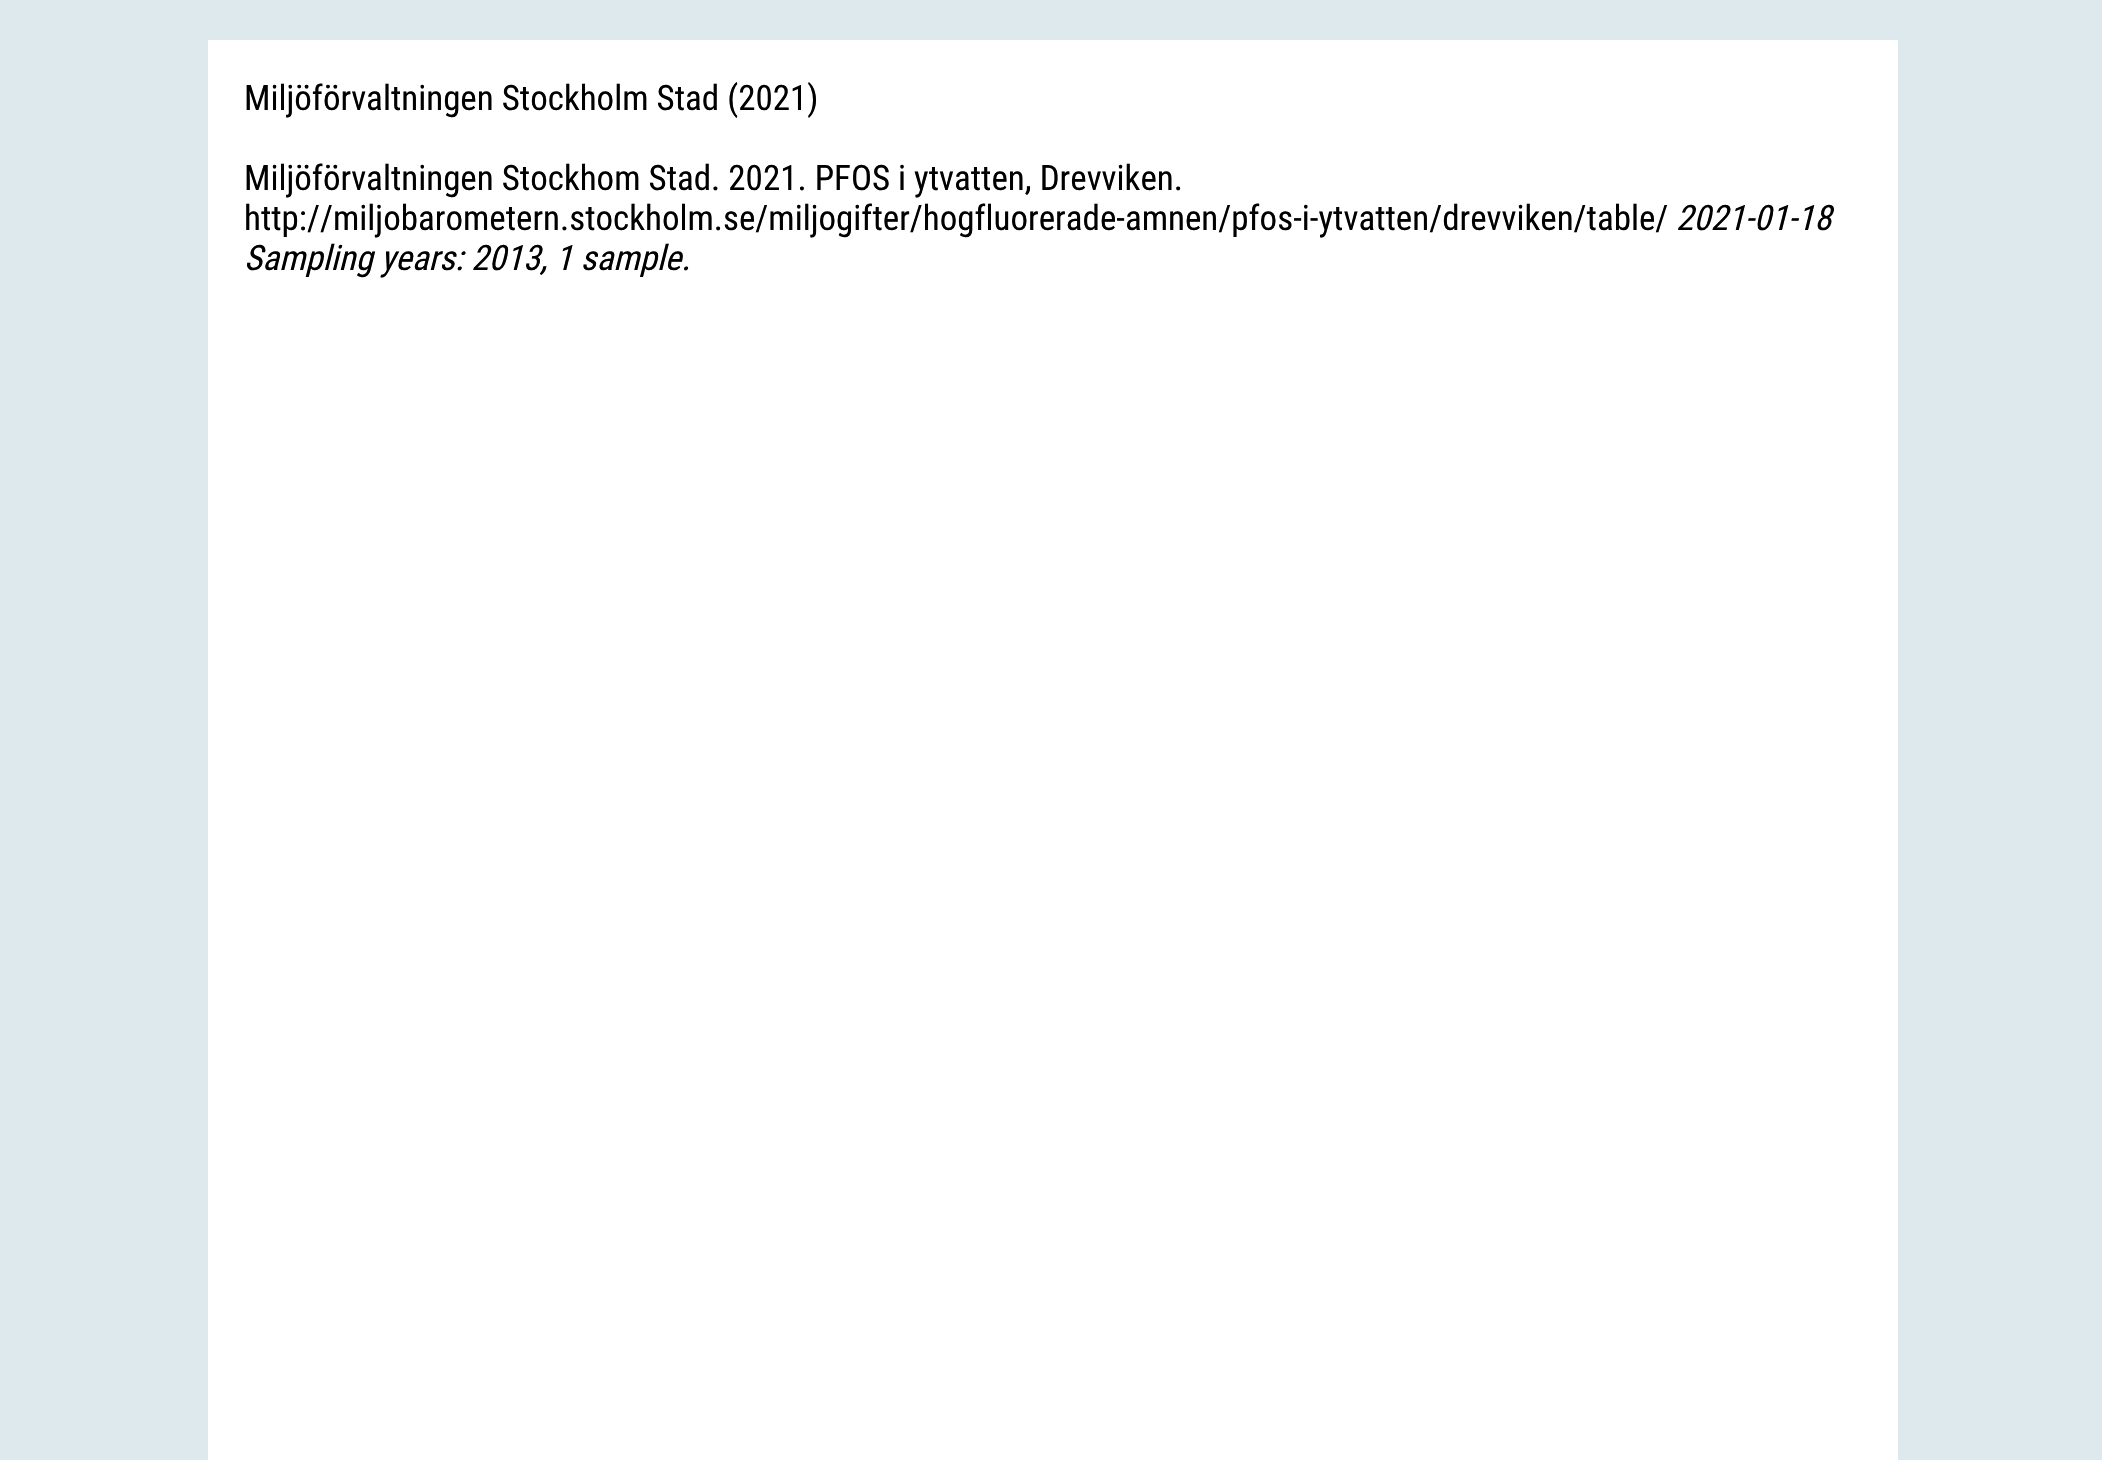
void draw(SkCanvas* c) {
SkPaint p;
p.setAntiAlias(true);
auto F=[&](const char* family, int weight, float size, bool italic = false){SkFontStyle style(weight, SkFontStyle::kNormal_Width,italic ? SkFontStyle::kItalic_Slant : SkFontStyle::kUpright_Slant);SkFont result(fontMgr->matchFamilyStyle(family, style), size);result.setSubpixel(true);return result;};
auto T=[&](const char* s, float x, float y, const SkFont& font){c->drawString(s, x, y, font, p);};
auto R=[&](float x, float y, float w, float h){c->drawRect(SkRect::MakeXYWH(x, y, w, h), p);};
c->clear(0xffdde9ec);
p.setColor(0xffffffff);
R(208,40,1690,1420);
auto f1 = F("Roboto Condensed",400,35);
p.setColor(0xff000000);
T("Miljöförvaltningen Stockholm Stad (2021)",244,110,f1);
T("Miljöförvaltningen Stockhom Stad. 2021. PFOS i ytvatten, Drevviken.",244,190,f1);
T("http://miljobarometern.stockholm.se/miljogifter/hogfluorerade-amnen/pfos-i-ytvatten/drevviken/table/",244,230,f1);
auto f2 = F("Roboto Condensed",400,35,true);
T("2021-01-18",1676,230,f2);
T("Sampling years: 2013, 1 sample.",244,270,f2);
}
